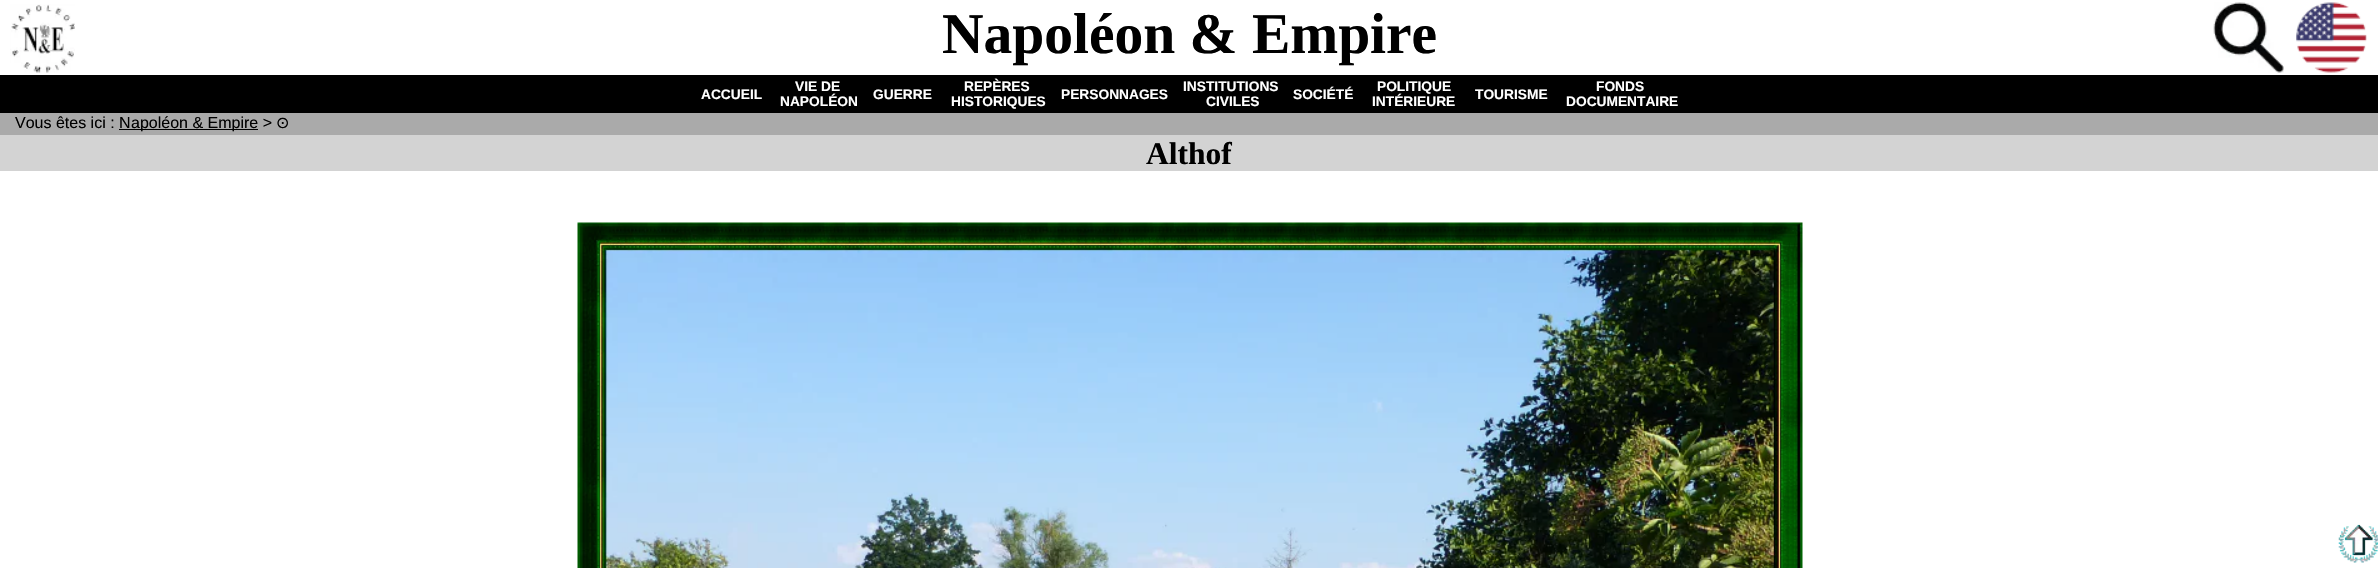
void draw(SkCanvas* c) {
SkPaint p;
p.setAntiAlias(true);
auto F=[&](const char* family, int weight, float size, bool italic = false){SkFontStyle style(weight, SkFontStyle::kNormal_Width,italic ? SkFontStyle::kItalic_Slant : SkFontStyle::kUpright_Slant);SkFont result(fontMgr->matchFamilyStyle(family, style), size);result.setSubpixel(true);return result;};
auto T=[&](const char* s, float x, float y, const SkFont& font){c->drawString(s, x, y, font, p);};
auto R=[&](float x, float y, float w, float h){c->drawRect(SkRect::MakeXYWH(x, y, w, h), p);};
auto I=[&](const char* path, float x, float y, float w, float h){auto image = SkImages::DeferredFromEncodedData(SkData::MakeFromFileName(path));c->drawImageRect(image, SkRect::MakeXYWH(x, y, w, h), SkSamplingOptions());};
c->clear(0xffffffff);
auto f1 = F("Liberation Serif",700,57.5);
p.setColor(0xff000000);
T("Napoléon & Empire",942,53,f1);
R(0,75,2378,38);
auto f2 = F("Liberation Sans",700,13.75);
p.setColor(0xffffffff);
T("ACCUEIL",701,99,f2);
T("VIE DE",795,91,f2);
T("NAPOLÉON",780,106,f2);
T("GUERRE",873,99,f2);
T("REPÈRES",964,91,f2);
T("HISTORIQUES",951,106,f2);
T("PERSONNAGES",1061,99,f2);
T("INSTITUTIONS",1183,91,f2);
T("CIVILES",1206,106,f2);
T("SOCIÉTÉ",1293,99,f2);
T("POLITIQUE",1377,91,f2);
T("INTÉRIEURE",1372,106,f2);
T("TOURISME",1475,99,f2);
T("FONDS",1596,91,f2);
T("DOCUMENTAIRE",1566,106,f2);
I("1.png",10,4,65,69);
I("2.png",2213,2,71,71);
I("3.png",2296,2,71,71);
p.setColor(0xffaaaaaa);
R(0,113,2378,22);
auto f3 = F("Liberation Sans",400,16);
p.setColor(0xff000000);
T("Vous êtes ici : N",15,128,f3);
R(119,129,139,1);
T("apoléon & Empire >",131,128,f3);
auto f4 = F("DejaVu Sans",400,16);
T("⊙",276,128,f4);
I("4.png",2338,524,40,39);
p.setColor(0xffd3d3d3);
R(0,135,2378,36);
auto f5 = F("Liberation Serif",700,31.5);
p.setColor(0xff000000);
T("Althof",1146,164,f5);
I("5.png",577,222,1226,346);
}
